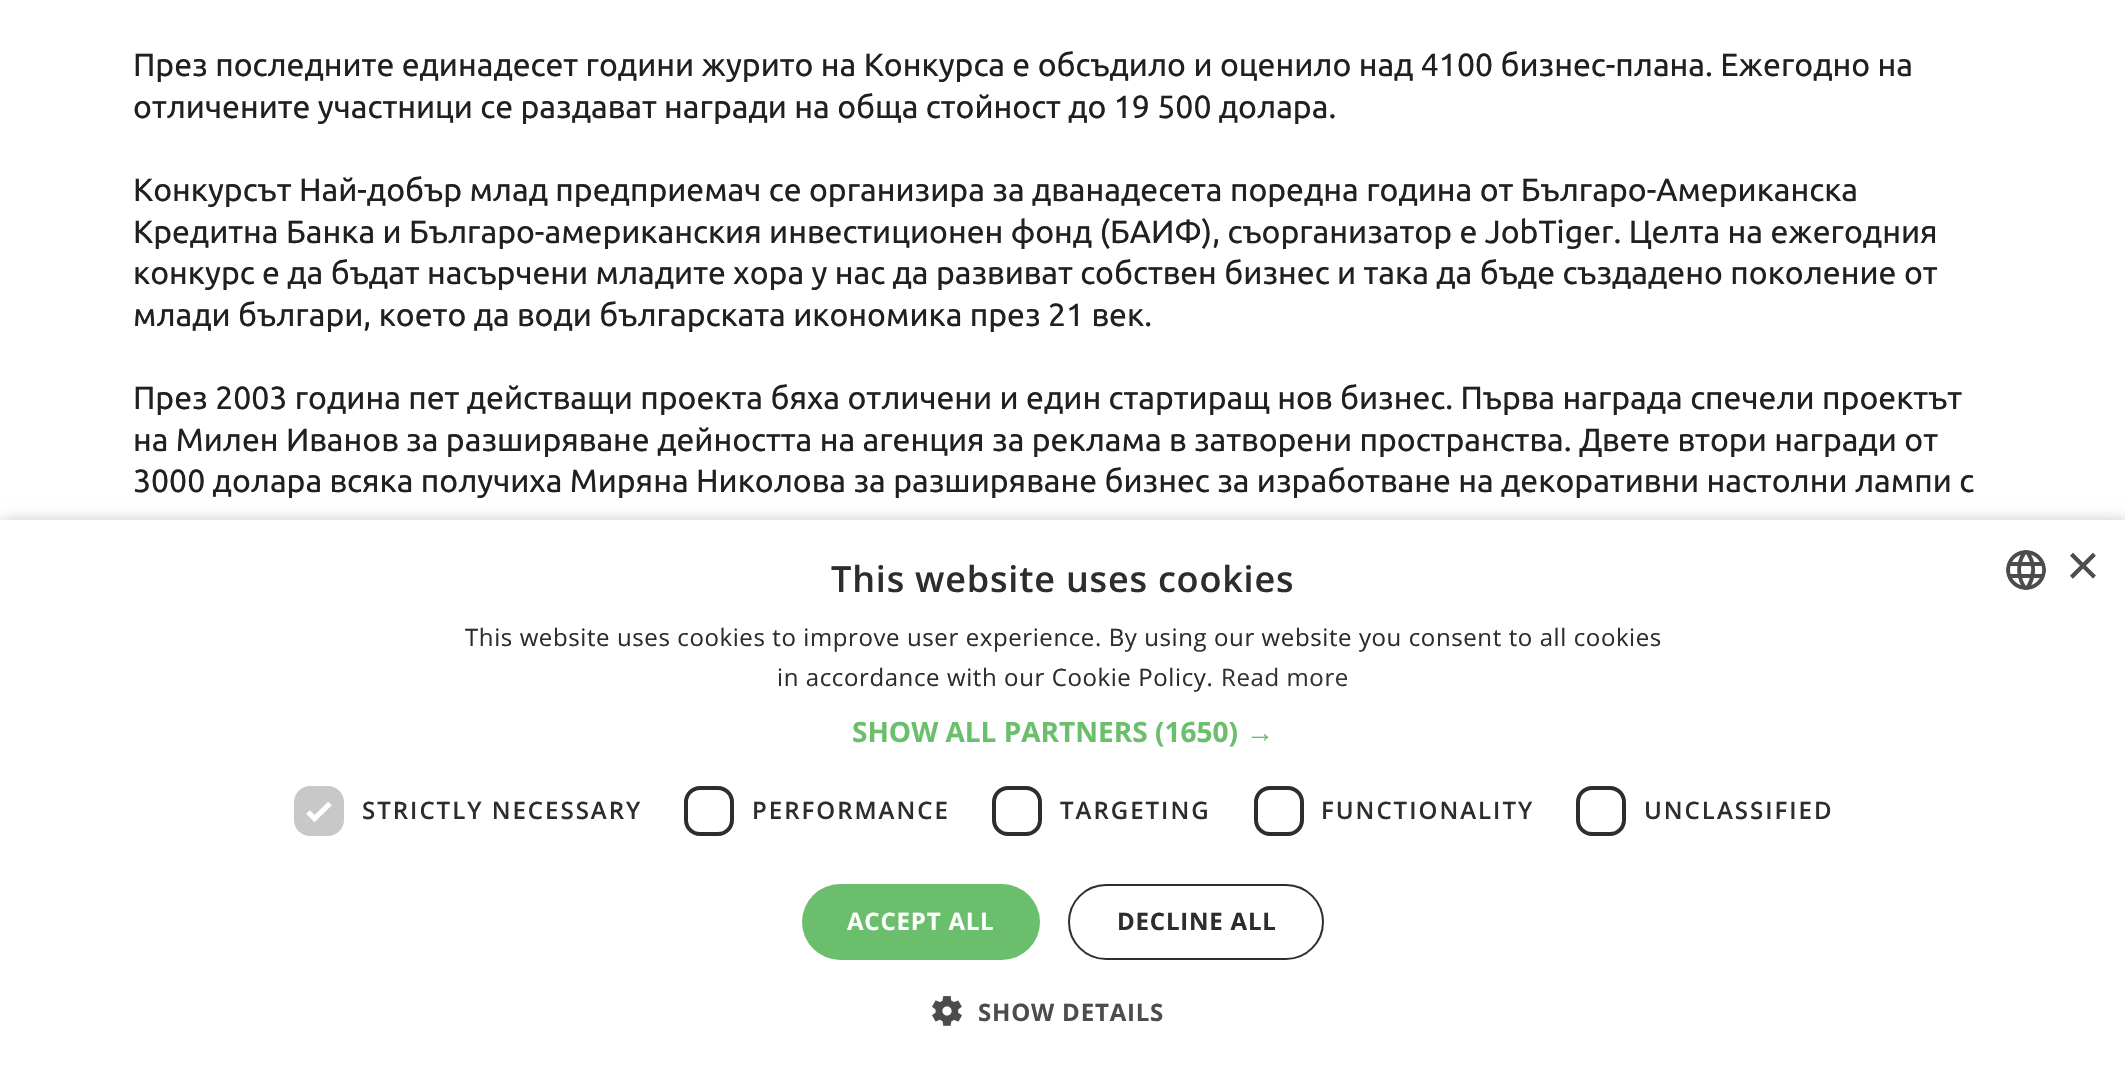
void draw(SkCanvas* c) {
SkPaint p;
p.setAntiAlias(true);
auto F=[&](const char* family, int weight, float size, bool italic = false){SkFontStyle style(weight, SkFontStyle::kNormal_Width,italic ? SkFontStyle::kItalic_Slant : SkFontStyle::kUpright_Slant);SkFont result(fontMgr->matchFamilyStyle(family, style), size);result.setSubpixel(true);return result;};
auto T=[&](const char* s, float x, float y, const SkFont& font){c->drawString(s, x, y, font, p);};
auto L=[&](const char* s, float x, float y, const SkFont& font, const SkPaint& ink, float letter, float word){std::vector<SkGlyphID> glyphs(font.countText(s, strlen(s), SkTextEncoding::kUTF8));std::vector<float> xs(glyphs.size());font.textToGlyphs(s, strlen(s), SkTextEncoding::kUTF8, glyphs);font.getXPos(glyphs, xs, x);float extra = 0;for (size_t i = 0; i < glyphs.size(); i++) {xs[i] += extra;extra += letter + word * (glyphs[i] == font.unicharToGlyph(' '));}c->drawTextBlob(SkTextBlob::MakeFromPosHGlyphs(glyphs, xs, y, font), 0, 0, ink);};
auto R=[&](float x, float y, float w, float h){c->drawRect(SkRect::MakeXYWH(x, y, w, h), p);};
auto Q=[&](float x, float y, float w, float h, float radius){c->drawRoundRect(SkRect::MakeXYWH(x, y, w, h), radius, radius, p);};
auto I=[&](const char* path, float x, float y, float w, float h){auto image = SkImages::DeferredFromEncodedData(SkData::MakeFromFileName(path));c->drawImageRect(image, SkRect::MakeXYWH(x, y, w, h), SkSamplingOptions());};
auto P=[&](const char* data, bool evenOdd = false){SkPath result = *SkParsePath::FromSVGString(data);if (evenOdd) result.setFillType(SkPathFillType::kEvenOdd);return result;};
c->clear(0xffffffff);
auto f1 = F("Ubuntu",400,32);
p.setColor(0xff202020);
T("През последните единадесет години журито на Конкурса е обсъдило и оценило над 4100 бизнес-плана. Ежегодно на",133,76,f1);
T("отличените участници се раздават награди на обща стойност до 19 500 долара.",133,118,f1);
T("Конкурсът Най-добър млад предприемач се организира за дванадесета поредна година от Българо-Американска",133,201,f1);
T("Кредитна Банка и Българо-американския инвестиционен фонд (БАИФ), съорганизатор е JobTiger. Целта на ежегодния",133,243,f1);
T("конкурс е да бъдат насърчени младите хора у нас да развиват собствен бизнес и така да бъде създадено поколение от",133,284,f1);
T("млади българи, което да води българската икономика през 21 век.",133,326,f1);
T("През 2003 година пет действащи проекта бяха отличени и един стартиращ нов бизнес. Първа награда спечели проектът",133,409,f1);
T("на Милен Иванов за разширяване дейността на агенция за реклама в затворени пространства. Двете втори награди от",133,451,f1);
T("3000 долара всяка получиха Миряна Николова за разширяване бизнес за изработване на декоративни настолни лампи с",133,492,f1);
p.setColor(0x59000000);
p.setMaskFilter(SkMaskFilter::MakeBlur(kNormal_SkBlurStyle, 8));
c->drawRect(SkRect::MakeXYWH(2,524,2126,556),p);
p.setMaskFilter(nullptr);
p.setColor(0xffffffff);
R(0,520,2125,555);
auto f2 = F("Open Sans",600,36);
p.setColor(0xff2d2d2d);
L("This website uses cookies",831,592,f2,p,.8,0);
I("1.png",2006,550,40,40);
auto f3 = F("Liberation Sans",400,58);
p.setColor(0xff4d4d4d);
T("×",2066,585,f3);
auto f4 = F("Open Sans",400,24);
p.setColor(0xff2d2d2d);
L("This website uses cookies to improve user experience. By using our website you consent to all cookies",465,646,f4,p,.6,0);
L("in accordance with our Cookie Policy.",777,686,f4,p,.6,0);
p.setColor(0xff333333);
L("Read more",1221,686,f4,p,.6,0);
auto f5 = F("Open Sans",700,28);
p.setColor(0xff6bbe6b);
T("SHOW ALL PARTNERS (1650)",852,742,f5);
auto f6 = F("Liberation Sans",700,28);
T("→",1246,742,f6);
p.setColor(0xffc8c8c8);
Q(294,786,50,50,16);
p.setStroke(true);
p.setStrokeWidth(5.2);
p.setColor(0xffffffff);
c->drawPath(P("M308 812l6.5 6.5l15.5-15"),p);
auto f7 = F("Open Sans",600,24);
p.setStroke(false);
p.setColor(0xff2d2d2d);
L("STRICTLY NECESSARY",362,819,f7,p,2,0);
p.setStroke(true);
p.setStrokeWidth(4);
c->drawRoundRect(SkRect::MakeXYWH(686,788,46,46),14,14,p);
p.setStroke(false);
L("PERFORMANCE",752,819,f7,p,2,0);
p.setStroke(true);
c->drawRoundRect(SkRect::MakeXYWH(994,788,46,46),14,14,p);
p.setStroke(false);
L("TARGETING",1060,819,f7,p,2,0);
p.setStroke(true);
c->drawRoundRect(SkRect::MakeXYWH(1256,788,46,46),14,14,p);
p.setStroke(false);
L("FUNCTIONALITY",1321,819,f7,p,2,0);
p.setStroke(true);
c->drawRoundRect(SkRect::MakeXYWH(1578,788,46,46),14,14,p);
p.setStroke(false);
L("UNCLASSIFIED",1644,819,f7,p,2,0);
p.setColor(0xff6bbe6b);
Q(802,884,238,76,38);
auto f8 = F("Open Sans",700,24);
p.setColor(0xffffffff);
L("ACCEPT ALL",847,930,f8,p,.8,0);
p.setStroke(true);
p.setStrokeWidth(2);
p.setColor(0xff2d2d2d);
c->drawRoundRect(SkRect::MakeXYWH(1069,885,254,74),37,37,p);
p.setStroke(false);
L("DECLINE ALL",1117,930,f8,p,.8,0);
I("2.png",932,996,30,30);
p.setColor(0xff4d4d4d);
L("SHOW DETAILS",978,1021,f8,p,.8,0);
}
